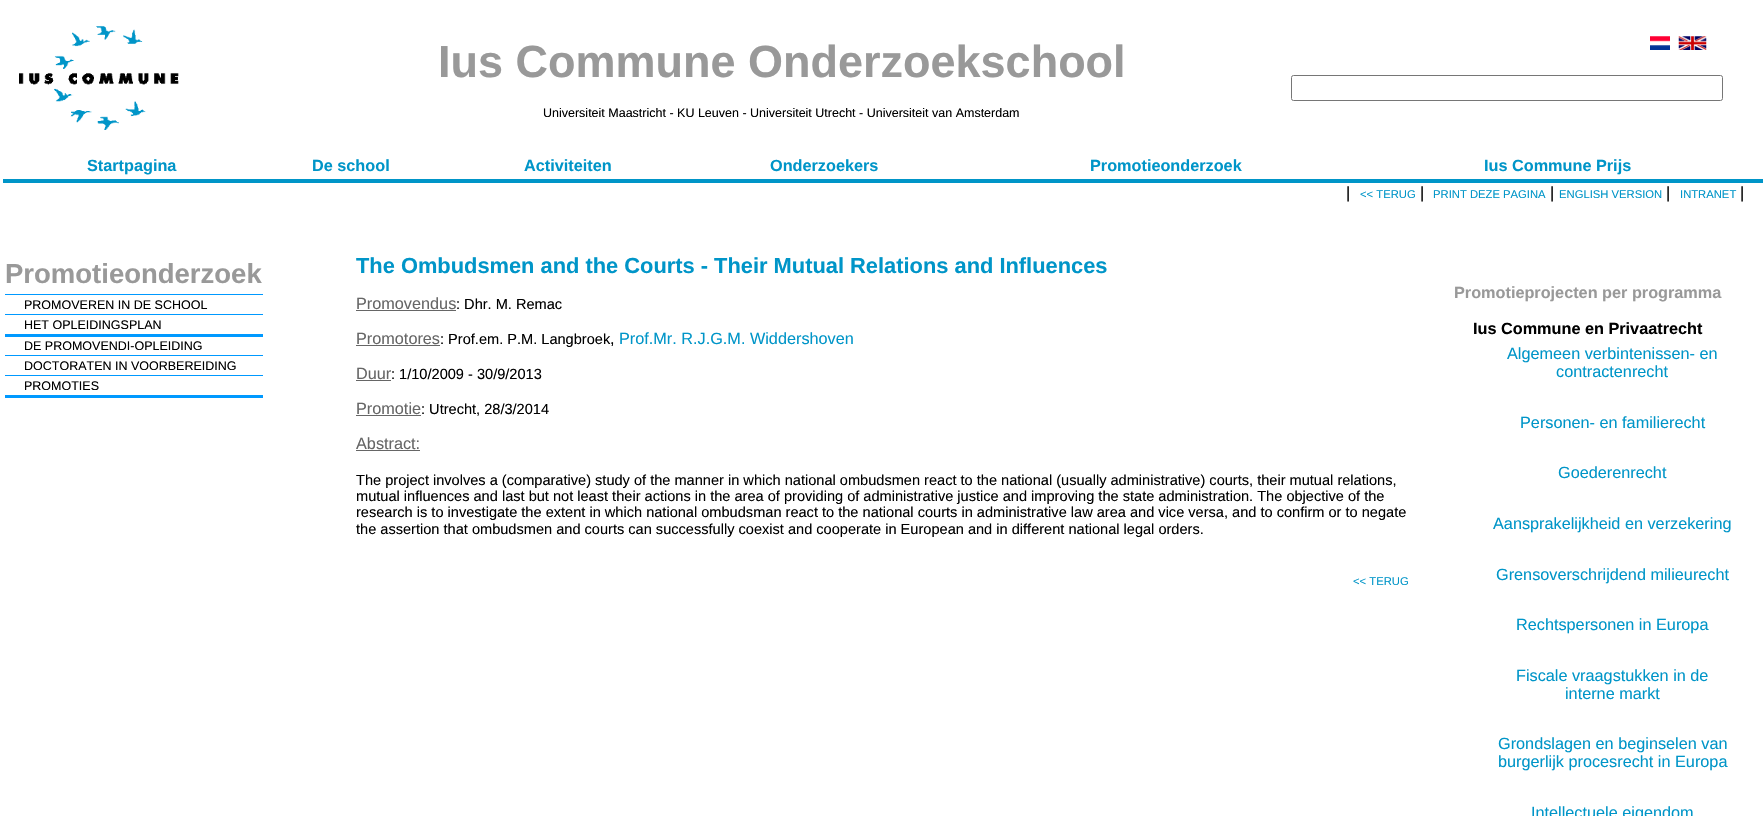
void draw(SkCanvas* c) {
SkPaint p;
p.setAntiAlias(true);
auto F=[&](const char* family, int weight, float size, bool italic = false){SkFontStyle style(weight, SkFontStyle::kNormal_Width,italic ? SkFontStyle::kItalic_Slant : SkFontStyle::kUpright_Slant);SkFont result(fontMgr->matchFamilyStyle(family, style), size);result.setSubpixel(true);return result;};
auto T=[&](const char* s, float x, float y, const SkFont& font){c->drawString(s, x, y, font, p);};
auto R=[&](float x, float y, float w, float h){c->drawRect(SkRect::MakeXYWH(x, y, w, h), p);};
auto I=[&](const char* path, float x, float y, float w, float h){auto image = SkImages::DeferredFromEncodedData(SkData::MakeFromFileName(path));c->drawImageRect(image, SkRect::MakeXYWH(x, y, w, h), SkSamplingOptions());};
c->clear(0xffffffff);
I("1.png",19,25,160,105);
auto f1 = F("Liberation Sans",700,45);
p.setColor(0xff999999);
T("Ius Commune Onderzoekschool",438,77,f1);
auto f2 = F("Liberation Sans",400,12.5);
p.setColor(0xff000000);
T("Universiteit Maastricht - KU Leuven - Universiteit Utrecht - Universiteit van Amsterdam",543,117,f2);
I("2.png",1650,36,20,14);
I("3.png",1678,36,29,14);
p.setStroke(true);
p.setStrokeWidth(1);
p.setColor(0xff767676);
c->drawRoundRect(SkRect::MakeXYWH(1291.5,75.5,431,25),2,2,p);
auto f3 = F("Liberation Sans",700,16.25);
p.setStroke(false);
p.setColor(0xff0095c8);
T("Startpagina",87,171,f3);
T("De school",312,171,f3);
T("Activiteiten",524,171,f3);
T("Onderzoekers",770,171,f3);
T("Promotieonderzoek",1090,171,f3);
T("Ius Commune Prijs",1484,171,f3);
R(3,179,1760,4);
auto f4 = F("Liberation Sans",400,16.25);
p.setColor(0xff000000);
T("|",1346,198,f4);
auto f5 = F("Liberation Sans",400,11.25);
p.setColor(0xff0095c8);
T("<< TERUG",1360,198,f5);
p.setColor(0xff000000);
T("|",1420,198,f4);
p.setColor(0xff0095c8);
T("PRINT DEZE PAGINA",1433,198,f5);
p.setColor(0xff000000);
T("|",1550,198,f4);
p.setColor(0xff0095c8);
T("ENGLISH VERSION",1559,198,f5);
p.setColor(0xff000000);
T("|",1666,198,f4);
p.setColor(0xff0095c8);
T("INTRANET",1680,198,f5);
p.setColor(0xff000000);
T("|",1740,198,f4);
auto f6 = F("Liberation Sans",700,27.5);
p.setColor(0xff999999);
T("Promotieonderzoek",5,283,f6);
p.setColor(0xff0099ff);
R(5,294,258,1);
p.setColor(0xff000000);
T("PROMOVEREN IN DE SCHOOL",24,309,f2);
p.setColor(0xff0099ff);
R(5,314,258,1);
p.setColor(0xff000000);
T("HET OPLEIDINGSPLAN",24,329,f2);
p.setColor(0xff0099ff);
R(5,334,258,3);
p.setColor(0xff000000);
T("DE PROMOVENDI-OPLEIDING",24,350,f2);
p.setColor(0xff0099ff);
R(5,355,258,1);
p.setColor(0xff000000);
T("DOCTORATEN IN VOORBEREIDING",24,370,f2);
p.setColor(0xff0099ff);
R(5,375,258,1);
p.setColor(0xff000000);
T("PROMOTIES",24,390,f2);
p.setColor(0xff0099ff);
R(5,395,258,3);
auto f7 = F("Liberation Sans",700,21.85);
p.setColor(0xff0095c8);
T("The Ombudsmen and the Courts - Their Mutual Relations and Influences",356,273,f7);
p.setColor(0xff666666);
T("Promovendus",356,309,f4);
R(356,310,100,1);
auto f8 = F("Liberation Sans",400,14.58);
p.setColor(0xff000000);
T(": Dhr. M. Remac",456,309,f8);
p.setColor(0xff666666);
T("Promotores",356,344,f4);
R(356,345,84,1);
p.setColor(0xff000000);
T(": Prof.em. P.M. Langbroek",440,344,f8);
T(",",610,344,f4);
p.setColor(0xff0095c8);
T("Prof.Mr. R.J.G.M. Widdershoven",619,344,f4);
p.setColor(0xff666666);
T("Duur",356,379,f4);
R(356,380,35,1);
p.setColor(0xff000000);
T(": 1/10/2009 - 30/9/2013",391,379,f8);
p.setColor(0xff666666);
T("Promotie",356,414,f4);
R(356,415,65,1);
p.setColor(0xff000000);
T(": Utrecht, 28/3/2014",421,414,f8);
p.setColor(0xff666666);
T("Abstract:",356,449,f4);
R(356,450,64,1);
p.setColor(0xff000000);
T("The project involves a (comparative) study of the manner in which national ombudsmen react to the national (usually administrative) courts, their mutual relations,",356,485,f8);
T("mutual influences and last but not least their actions in the area of providing of administrative justice and improving the state administration. The objective of the",356,501,f8);
T("research is to investigate the extent in which national ombudsman react to the national courts in administrative law area and vice versa, and to confirm or to negate",356,517,f8);
T("the assertion that ombudsmen and courts can successfully coexist and cooperate in European and in different national legal orders.",356,534,f8);
p.setColor(0xff0095c8);
T("<< TERUG",1353,585,f5);
p.setColor(0xff999999);
T("Promotieprojecten per programma",1454,298,f3);
p.setColor(0xff000000);
T("Ius Commune en Privaatrecht",1473,334,f3);
p.setColor(0xff0095c8);
T("Algemeen verbintenissen- en",1507,359,f4);
T("contractenrecht",1556,377,f4);
T("Personen- en familierecht",1520,428,f4);
T("Goederenrecht",1558,478,f4);
T("Aansprakelijkheid en verzekering",1493,529,f4);
T("Grensoverschrijdend milieurecht",1496,580,f4);
T("Rechtspersonen in Europa",1516,630,f4);
T("Fiscale vraagstukken in de",1516,681,f4);
T("interne markt",1565,699,f4);
T("Grondslagen en beginselen van",1498,749,f4);
T("burgerlijk procesrecht in Europa",1498,767,f4);
T("Intellectuele eigendom",1531,818,f4);
}
